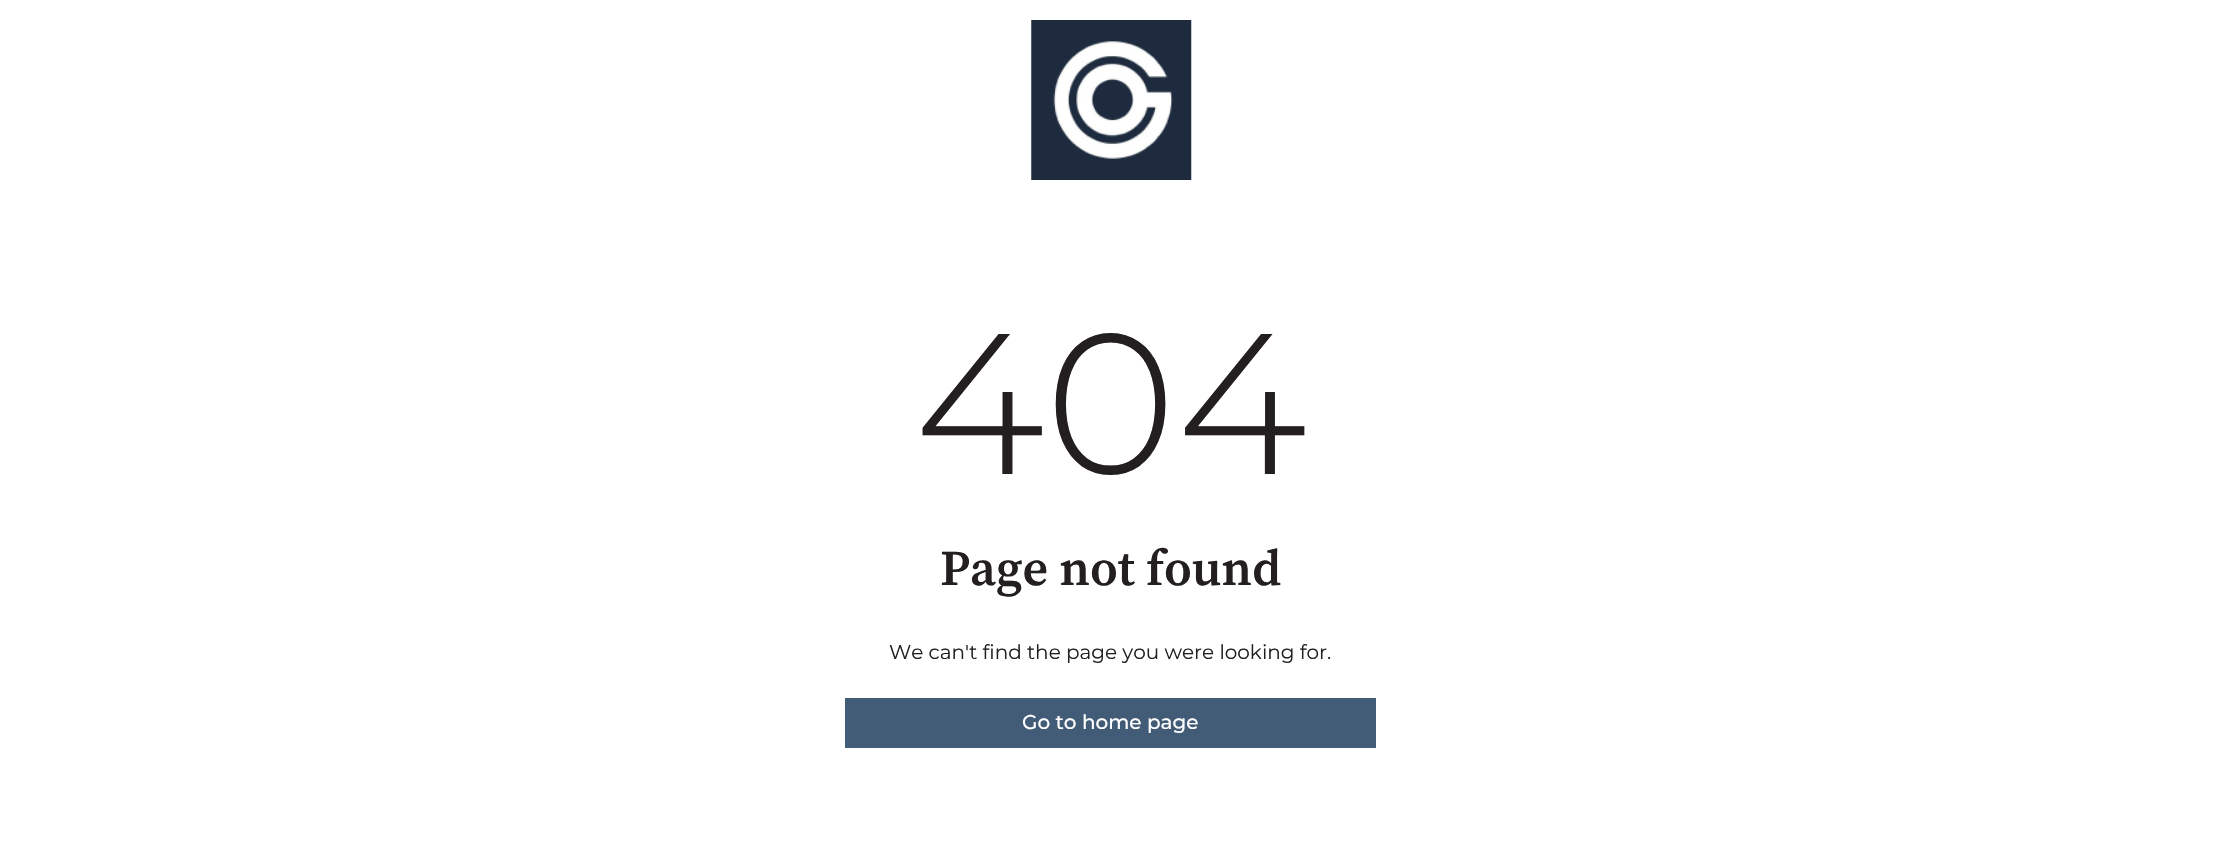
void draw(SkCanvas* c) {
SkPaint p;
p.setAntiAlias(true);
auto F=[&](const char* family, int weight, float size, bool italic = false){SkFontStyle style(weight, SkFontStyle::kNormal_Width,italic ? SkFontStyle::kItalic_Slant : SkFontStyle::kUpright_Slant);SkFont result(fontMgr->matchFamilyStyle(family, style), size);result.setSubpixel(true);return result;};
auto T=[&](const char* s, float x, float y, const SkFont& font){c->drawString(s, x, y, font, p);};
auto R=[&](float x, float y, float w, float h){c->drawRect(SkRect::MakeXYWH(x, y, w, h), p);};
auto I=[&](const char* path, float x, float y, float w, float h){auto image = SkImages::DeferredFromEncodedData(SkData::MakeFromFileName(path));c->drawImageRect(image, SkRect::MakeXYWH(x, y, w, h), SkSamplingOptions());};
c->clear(0xffffffff);
I("1.png",1031,20,161,160);
auto f1 = F("Montserrat",300,200);
p.setColor(0xff231f20);
T("404",914,474,f1);
auto f2 = F("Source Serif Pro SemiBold",600,50);
T("Page not found",940,585,f2);
auto f3 = F("Montserrat",400,20);
T("We can't find the page you were looking for.",889,659,f3);
p.setColor(0xff425b76);
R(845,698,531,50);
auto f4 = F("Montserrat",500,20);
p.setColor(0xffffffff);
T("Go to home page",1022,729,f4);
}
